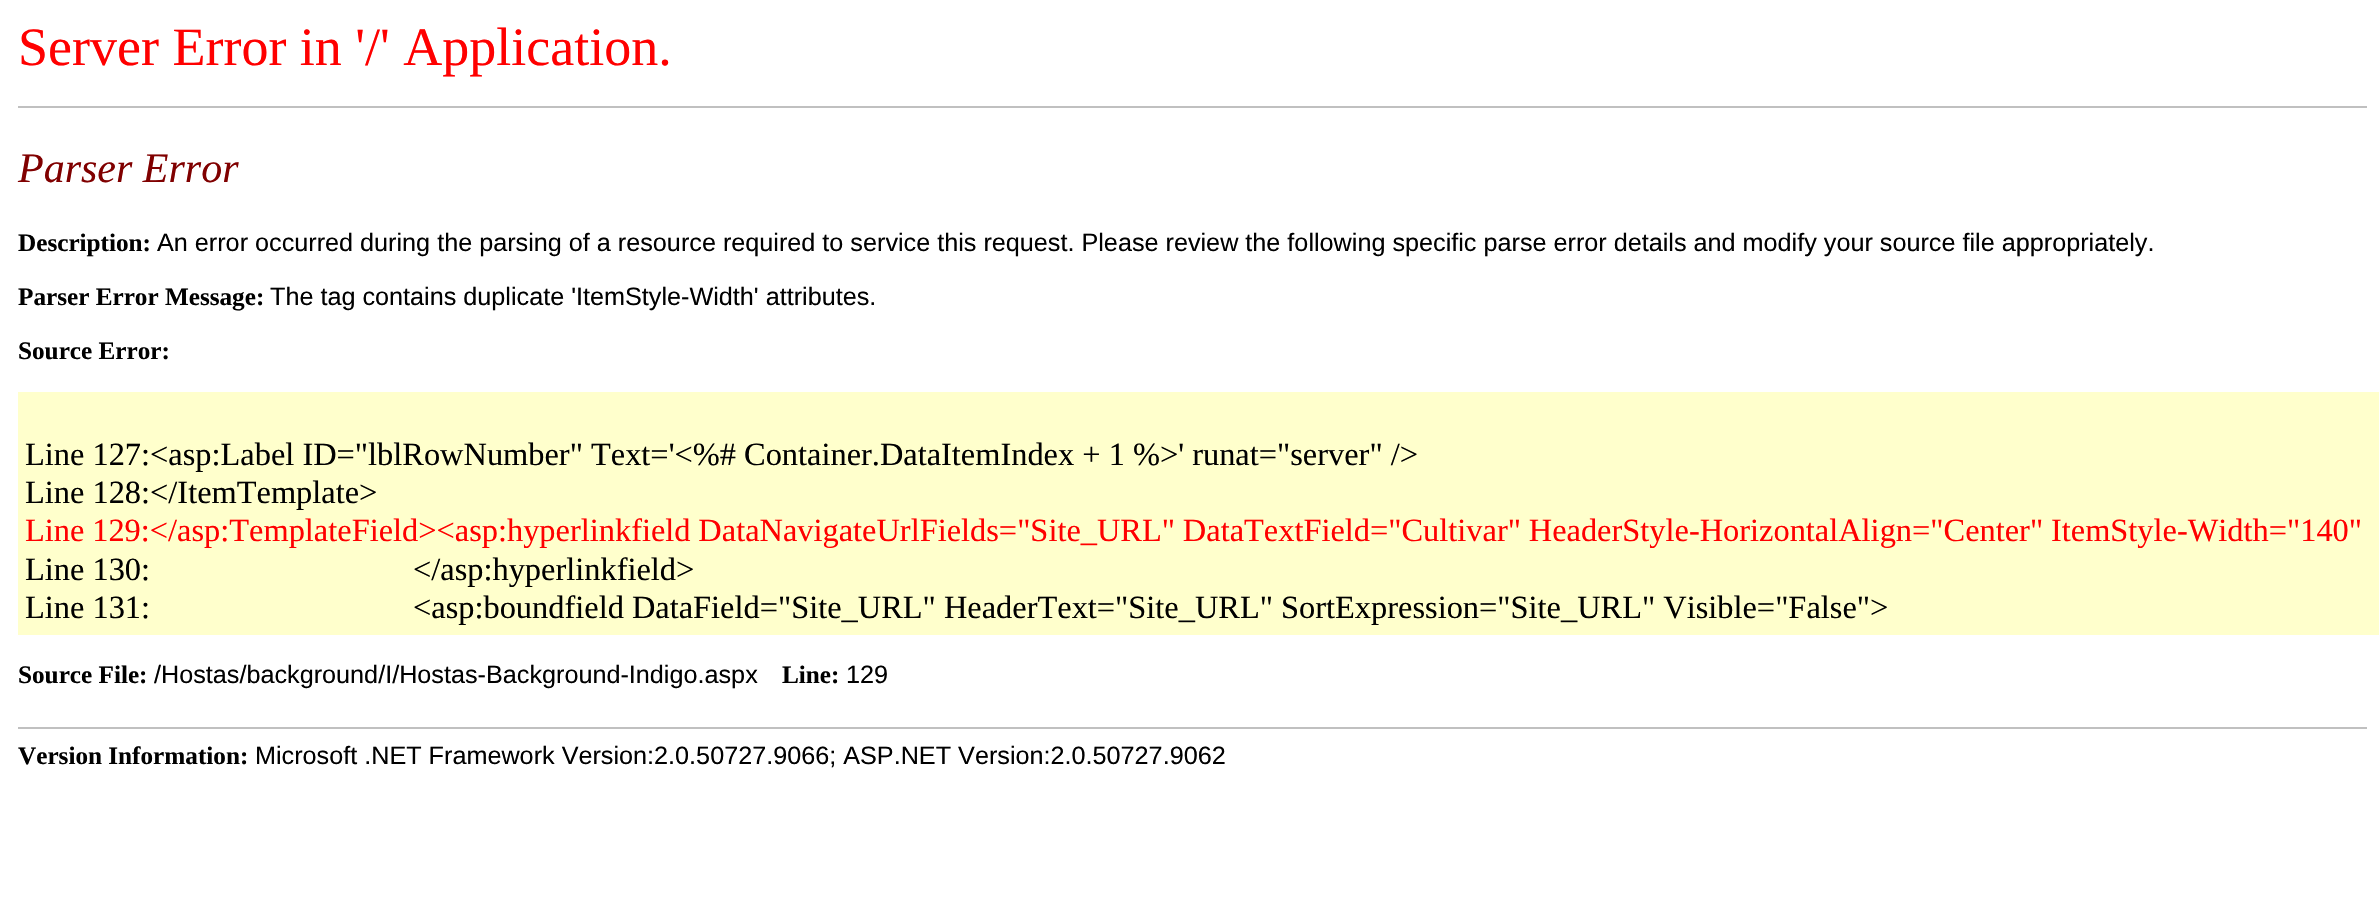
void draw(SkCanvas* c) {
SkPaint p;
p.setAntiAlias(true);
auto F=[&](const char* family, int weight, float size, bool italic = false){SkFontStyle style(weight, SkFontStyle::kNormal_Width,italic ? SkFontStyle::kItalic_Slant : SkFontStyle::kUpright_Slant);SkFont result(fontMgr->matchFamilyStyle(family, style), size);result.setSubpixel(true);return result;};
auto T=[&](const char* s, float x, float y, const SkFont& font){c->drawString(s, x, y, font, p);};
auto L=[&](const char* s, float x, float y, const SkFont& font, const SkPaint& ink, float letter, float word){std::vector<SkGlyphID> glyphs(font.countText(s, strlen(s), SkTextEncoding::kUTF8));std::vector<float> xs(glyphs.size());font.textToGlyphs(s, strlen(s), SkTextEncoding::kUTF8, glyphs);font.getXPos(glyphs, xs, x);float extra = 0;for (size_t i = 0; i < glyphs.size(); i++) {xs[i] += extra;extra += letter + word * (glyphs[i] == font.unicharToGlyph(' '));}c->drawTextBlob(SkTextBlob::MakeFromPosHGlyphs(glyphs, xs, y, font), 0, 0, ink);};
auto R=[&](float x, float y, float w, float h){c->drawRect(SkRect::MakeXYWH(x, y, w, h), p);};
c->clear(0xffffffff);
auto f1 = F("Liberation Serif",400,54);
p.setColor(0xffff0000);
T("Server Error in '/' Application.",18,65,f1);
p.setColor(0xffc0c0c0);
R(18,106,2349,2);
auto f2 = F("Liberation Serif",400,42,true);
p.setColor(0xff800000);
T("Parser Error",18,182,f2);
auto f3 = F("Liberation Serif",700,25.2);
p.setColor(0xff000000);
T("Description:",18,251,f3);
auto f4 = F("Liberation Sans",400,25.2);
T("An error occurred during the parsing of a resource required to service this request. Please review the following specific parse error details and modify your source file appropriately.",157,251,f4);
T("Parser Error Message:",18,305,f3);
T("The tag contains duplicate 'ItemStyle-Width' attributes.",270,305,f4);
T("Source Error:",18,359,f3);
p.setColor(0xffffffcc);
R(18,392,2361,243);
auto f5 = F("Liberation Serif",400,32.4);
p.setColor(0xff000000);
T("Line 127:<asp:Label ID=\"lblRowNumber\" Text='<%# Container.DataItemIndex + 1 %>' runat=\"server\" />",25,465,f5);
T("Line 128:</ItemTemplate>",25,503,f5);
p.setColor(0xffff0000);
L("Line 129:</asp:TemplateField><asp:hyperlinkfield DataNavigateUrlFields=\"Site_URL\" DataTextField=\"Cultivar\" HeaderStyle-HorizontalAlign=\"Center\" ItemStyle-Width=\"140\"",25,541,f5,p,0,-.25);
p.setColor(0xff000000);
T("Line 130:",25,580,f5);
T("</asp:hyperlinkfield>",413,580,f5);
T("Line 131:",25,618,f5);
T("<asp:boundfield DataField=\"Site_URL\" HeaderText=\"Site_URL\" SortExpression=\"Site_URL\" Visible=\"False\">",413,618,f5);
T("Source File:",18,683,f3);
T("/Hostas/background/I/Hostas-Background-Indigo.aspx",154,683,f4);
T("Line:",782,683,f3);
T("129",846,683,f4);
p.setColor(0xffc0c0c0);
R(18,727,2349,2);
p.setColor(0xff000000);
T("Version Information:",18,764,f3);
T("Microsoft .NET Framework Version:2.0.50727.9066; ASP.NET Version:2.0.50727.9062",255,764,f4);
}
